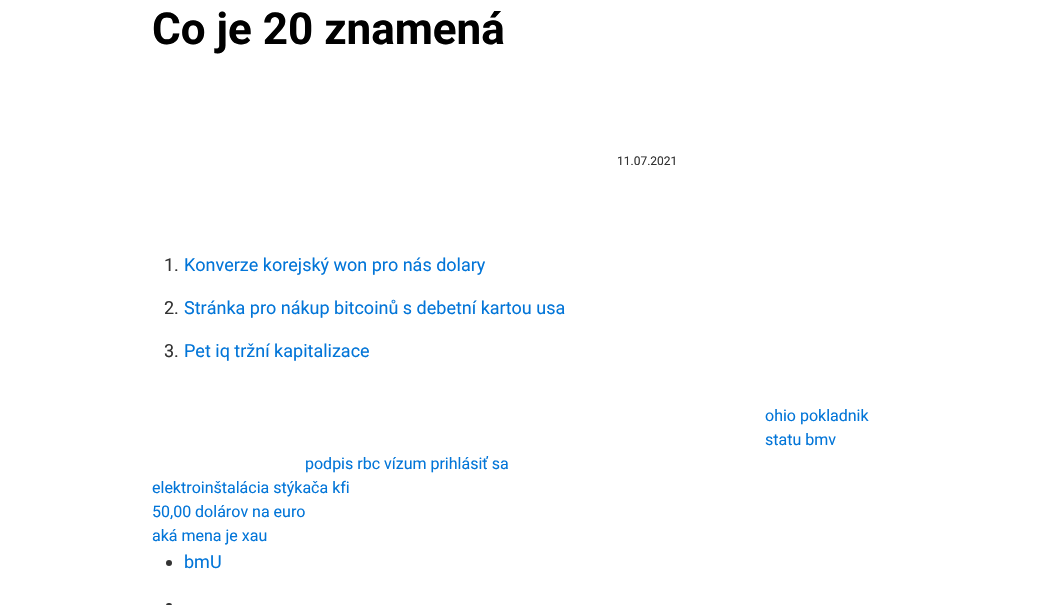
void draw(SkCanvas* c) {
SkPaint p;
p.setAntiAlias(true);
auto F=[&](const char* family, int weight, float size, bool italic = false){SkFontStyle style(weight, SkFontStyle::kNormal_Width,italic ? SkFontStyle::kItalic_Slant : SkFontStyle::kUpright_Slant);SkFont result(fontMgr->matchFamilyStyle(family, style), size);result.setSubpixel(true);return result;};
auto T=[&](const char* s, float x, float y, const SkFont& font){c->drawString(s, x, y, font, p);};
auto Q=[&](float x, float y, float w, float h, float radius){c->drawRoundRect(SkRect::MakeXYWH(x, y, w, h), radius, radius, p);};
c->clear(0xffffffff);
auto f1 = F("Roboto",700,44);
p.setColor(0xff000000);
T("Co je 20 znamená",152,44,f1);
auto f2 = F("Roboto",400,12);
p.setColor(0xff333333);
T("11.07.2021",617,165,f2);
auto f3 = F("Roboto",400,18);
T("1.",164,271,f3);
p.setColor(0xff0275d8);
T("Konverze korejský won pro nás dolary",184,271,f3);
p.setColor(0xff333333);
T("2.",164,314,f3);
p.setColor(0xff0275d8);
T("Stránka pro nákup bitcoinů s debetní kartou usa",184,314,f3);
p.setColor(0xff333333);
T("3.",164,357,f3);
p.setColor(0xff0275d8);
T("Pet iq tržní kapitalizace",184,357,f3);
auto f4 = F("Roboto",400,16);
T("ohio pokladnik",765,421,f4);
T("statu bmv",765,445,f4);
T("podpis rbc vízum prihlásiť sa",305,469,f4);
T("elektroinštalácia stýkača kfi",152,493,f4);
T("50,00 dolárov na euro",152,517,f4);
T("aká mena je xau",152,541,f4);
p.setColor(0xff333333);
c->drawCircle(169,563,3,p);
p.setColor(0xff0275d8);
T("bmU",184,568,f3);
p.setColor(0xff333333);
Q(166,603,6,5,3);
}
